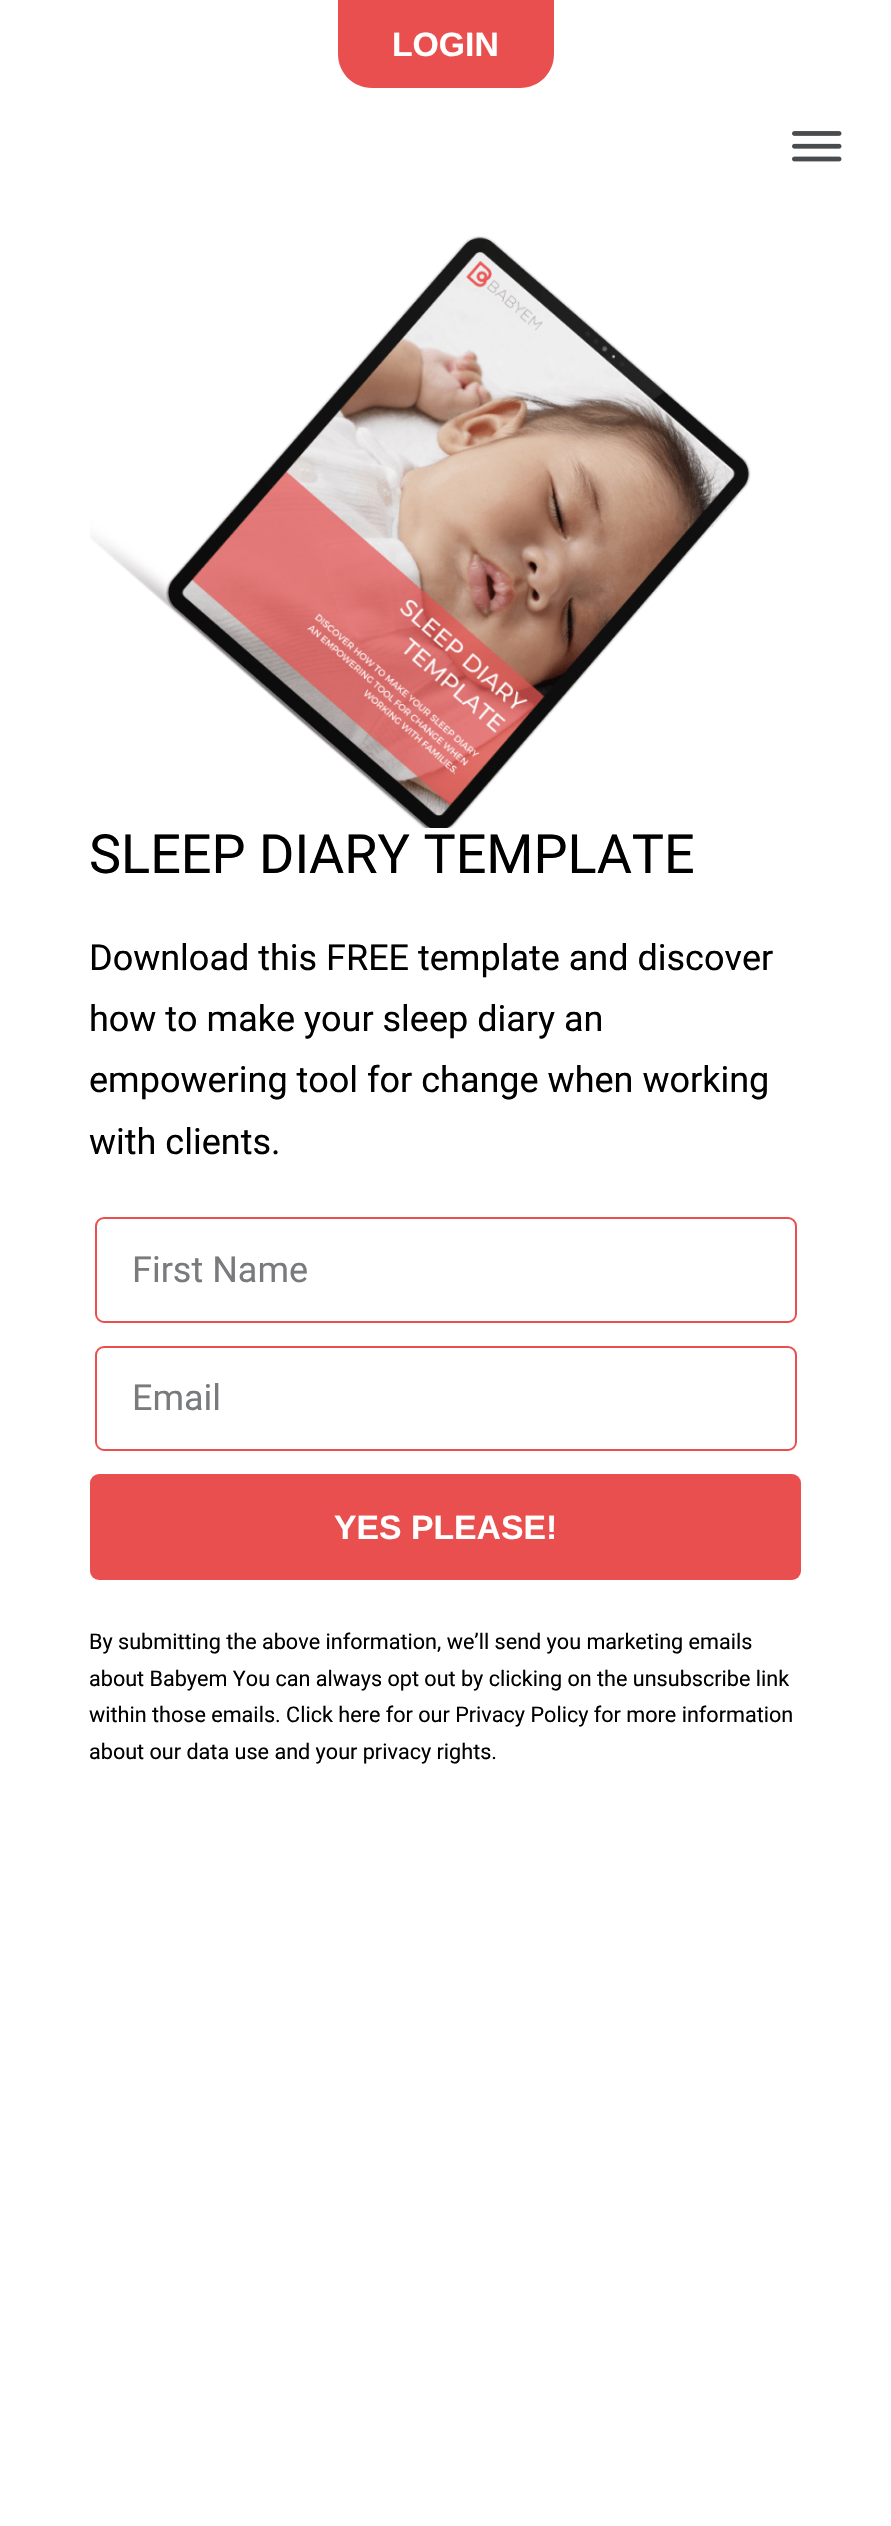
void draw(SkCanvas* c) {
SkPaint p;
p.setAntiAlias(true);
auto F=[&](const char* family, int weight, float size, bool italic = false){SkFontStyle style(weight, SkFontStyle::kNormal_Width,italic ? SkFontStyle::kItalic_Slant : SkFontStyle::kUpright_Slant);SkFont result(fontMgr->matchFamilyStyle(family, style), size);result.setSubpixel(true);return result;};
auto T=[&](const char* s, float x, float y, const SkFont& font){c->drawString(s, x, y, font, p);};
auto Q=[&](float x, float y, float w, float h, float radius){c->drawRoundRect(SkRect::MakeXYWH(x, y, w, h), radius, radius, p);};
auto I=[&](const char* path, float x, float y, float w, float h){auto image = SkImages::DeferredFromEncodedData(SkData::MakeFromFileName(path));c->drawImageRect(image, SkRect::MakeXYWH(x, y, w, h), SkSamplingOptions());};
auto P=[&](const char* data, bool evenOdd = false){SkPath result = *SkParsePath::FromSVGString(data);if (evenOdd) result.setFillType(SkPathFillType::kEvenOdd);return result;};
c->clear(0xffffffff);
p.setColor(0xffea4f4f);
c->drawPath(P("M338 0h216v54c0 19-15 34-34 34h-148c-19 0-34-15-34-34z"),p);
auto f1 = F("Liberation Sans",700,33.75);
p.setColor(0xffffffff);
T("LOGIN",392,56,f1);
I("1.png",792,131,50,31);
I("2.png",90,236,661,592);
auto f2 = F("Roboto",400,54);
p.setColor(0xff000000);
T("SLEEP DIARY TEMPLATE",89,873,f2);
auto f3 = F("Roboto",400,36);
T("Download this FREE template and discover",89,970,f3);
T("how to make your sleep diary an",89,1031,f3);
T("empowering tool for change when working",89,1092,f3);
T("with clients.",89,1154,f3);
p.setStroke(true);
p.setStrokeWidth(2);
p.setColor(0xffea4f4f);
c->drawRoundRect(SkRect::MakeXYWH(96,1218,700,104),8,8,p);
p.setStroke(false);
p.setColor(0xff797a7c);
T("First Name",132,1282,f3);
p.setStroke(true);
p.setColor(0xffea4f4f);
c->drawRoundRect(SkRect::MakeXYWH(96,1347,700,103),8,8,p);
p.setStroke(false);
p.setColor(0xff797a7c);
T("Email",132,1410,f3);
p.setColor(0xffea4f4f);
Q(90,1474,711,106,9);
p.setColor(0xffffffff);
T("YES PLEASE!",334,1539,f1);
auto f4 = F("Roboto",400,21.6);
p.setColor(0xff000000);
T("By submitting the above information, we’ll send you marketing emails",89,1649,f4);
T("about Babyem You can always opt out by clicking on the unsubscribe link",89,1686,f4);
T("within those emails. Click here for our Privacy Policy for more information",89,1722,f4);
T("about our data use and your privacy rights.",89,1759,f4);
}
